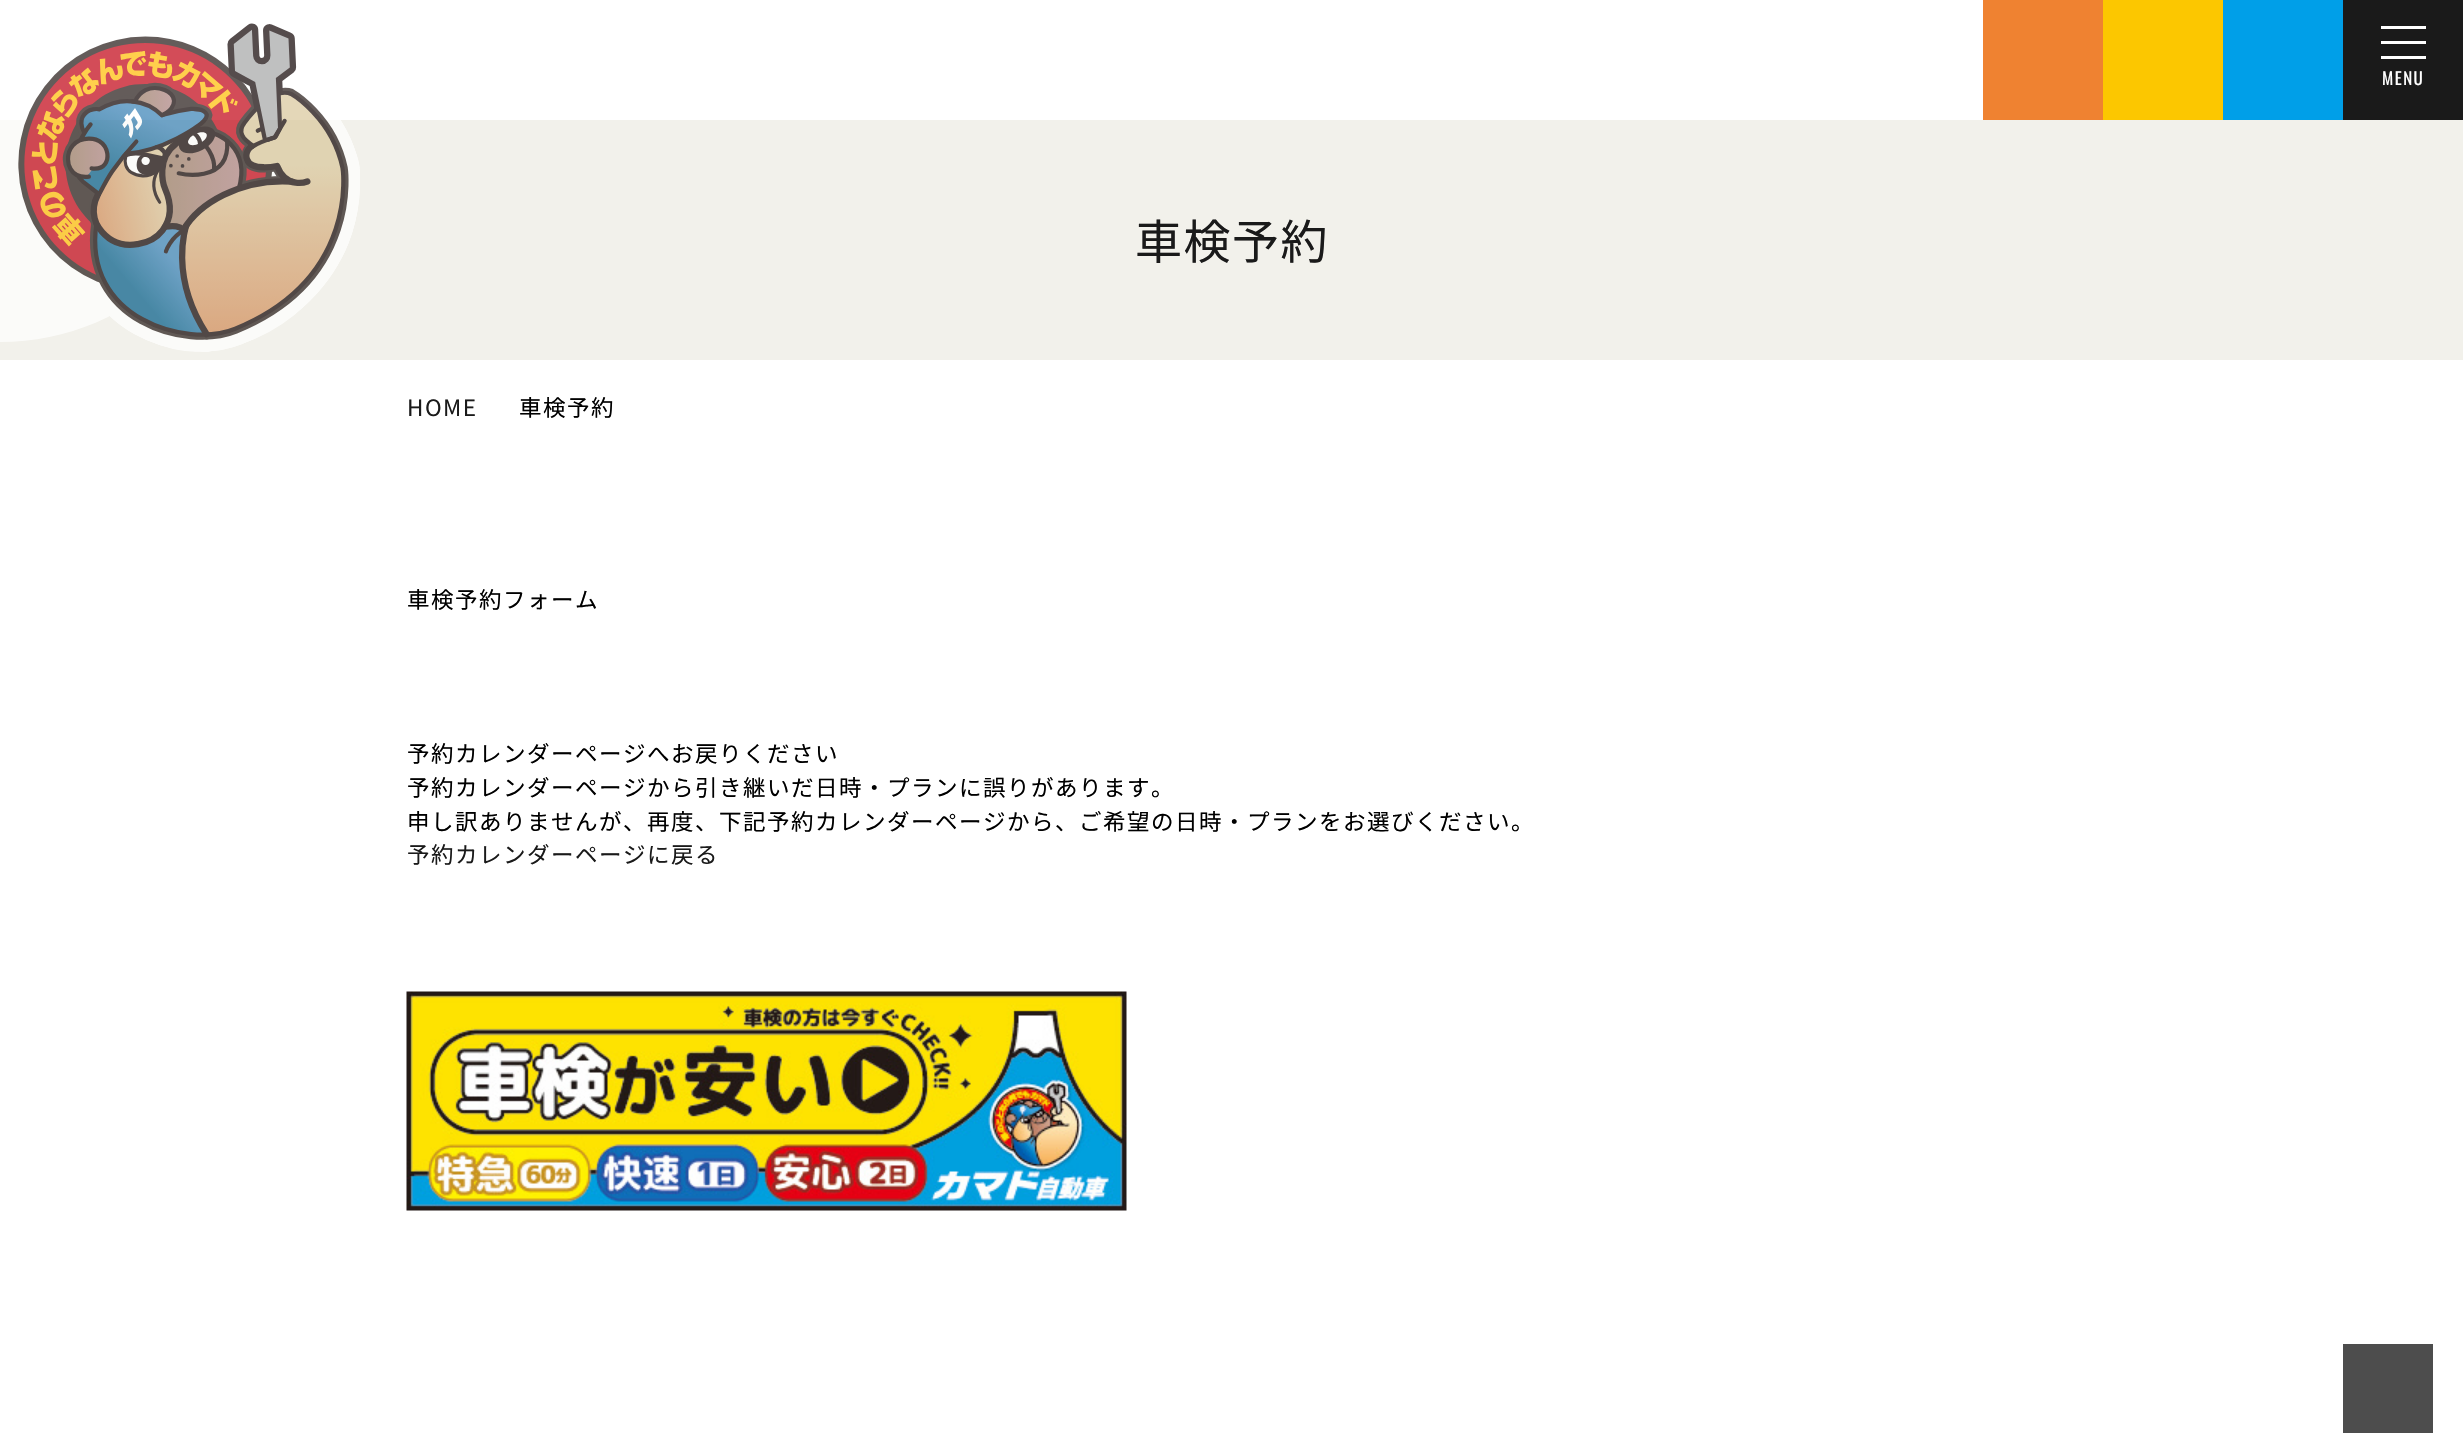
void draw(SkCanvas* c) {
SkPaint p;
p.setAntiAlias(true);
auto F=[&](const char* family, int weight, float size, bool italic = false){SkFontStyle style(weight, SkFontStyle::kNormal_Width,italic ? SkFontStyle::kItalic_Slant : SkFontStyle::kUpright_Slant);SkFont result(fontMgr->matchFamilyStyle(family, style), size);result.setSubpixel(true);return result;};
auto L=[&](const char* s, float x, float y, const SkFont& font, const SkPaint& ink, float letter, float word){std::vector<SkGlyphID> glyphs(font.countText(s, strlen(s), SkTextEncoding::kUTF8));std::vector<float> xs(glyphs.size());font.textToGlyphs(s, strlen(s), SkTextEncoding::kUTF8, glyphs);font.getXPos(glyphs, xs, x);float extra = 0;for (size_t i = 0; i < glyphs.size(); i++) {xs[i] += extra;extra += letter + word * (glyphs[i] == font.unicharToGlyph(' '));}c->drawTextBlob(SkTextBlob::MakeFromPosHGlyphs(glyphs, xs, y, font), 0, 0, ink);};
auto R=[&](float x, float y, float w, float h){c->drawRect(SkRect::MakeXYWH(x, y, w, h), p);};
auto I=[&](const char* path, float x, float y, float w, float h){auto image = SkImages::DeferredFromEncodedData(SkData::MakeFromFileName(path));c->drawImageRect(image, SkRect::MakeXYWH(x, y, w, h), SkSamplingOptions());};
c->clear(0xffffffff);
p.setColor(0xfff2f1eb);
R(0,120,2463,240);
I("1.png",0,23,360,329);
p.setColor(0xffef8231);
R(1983,0,120,120);
p.setColor(0xfffcc700);
R(2103,0,120,120);
p.setColor(0xff009fe8);
R(2223,0,120,120);
p.setColor(0xff1a1a1a);
R(2343,0,120,120);
p.setColor(0xffffffff);
R(2381,26,45,3);
R(2381,41,45,3);
R(2381,56,45,3);
auto f1 = F("Oswald",400,17);
L("MENU",2382,85,f1,p,1.5,0);
auto f2 = F("Noto Sans JP",400,47);
p.setColor(0xff1a1a1a);
L("車検予約",1135,259,f2,p,1.5,0);
auto f3 = F("Noto Sans JP",400,22.5);
L("HOME",407,416,f3,p,1.5,0);
p.setColor(0xff000000);
L("車検予約",519,416,f3,p,1.5,0);
L("車検予約フォーム",407,608,f3,p,1.5,0);
L("予約カレンダーページへお戻りください",407,762,f3,p,1.5,0);
L("予約カレンダーページから引き継いだ日時・プランに誤りがあります。",407,796,f3,p,1.5,0);
L("申し訳ありませんが、再度、下記予約カレンダーページから、ご希望の日時・プランをお選びください。",407,830,f3,p,1.5,0);
p.setColor(0xff1a1a1a);
L("予約カレンダーページに戻る",407,863,f3,p,1.5,0);
I("2.png",406,991,721,220);
p.setColor(0xff4d4d4d);
R(2343,1344,90,89);
}
